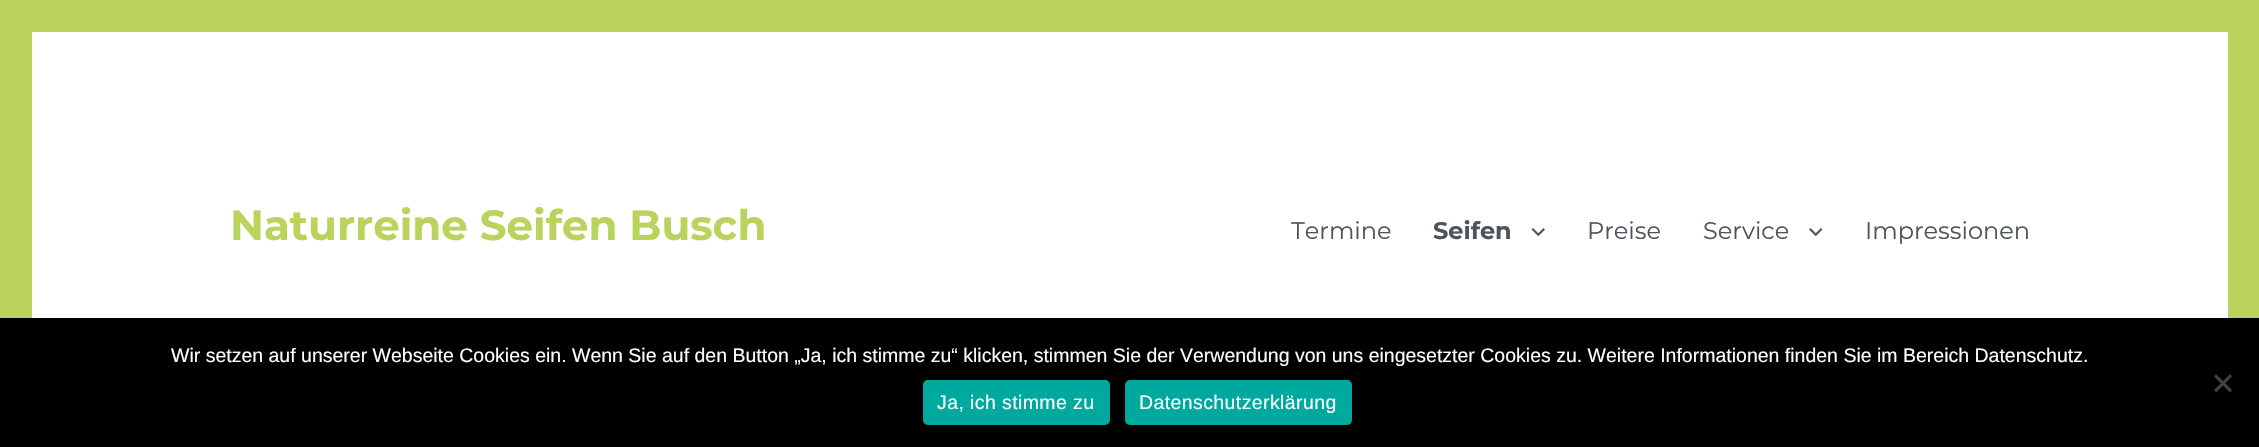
void draw(SkCanvas* c) {
SkPaint p;
p.setAntiAlias(true);
auto F=[&](const char* family, int weight, float size, bool italic = false){SkFontStyle style(weight, SkFontStyle::kNormal_Width,italic ? SkFontStyle::kItalic_Slant : SkFontStyle::kUpright_Slant);SkFont result(fontMgr->matchFamilyStyle(family, style), size);result.setSubpixel(true);return result;};
auto T=[&](const char* s, float x, float y, const SkFont& font){c->drawString(s, x, y, font, p);};
auto L=[&](const char* s, float x, float y, const SkFont& font, const SkPaint& ink, float letter, float word){std::vector<SkGlyphID> glyphs(font.countText(s, strlen(s), SkTextEncoding::kUTF8));std::vector<float> xs(glyphs.size());font.textToGlyphs(s, strlen(s), SkTextEncoding::kUTF8, glyphs);font.getXPos(glyphs, xs, x);float extra = 0;for (size_t i = 0; i < glyphs.size(); i++) {xs[i] += extra;extra += letter + word * (glyphs[i] == font.unicharToGlyph(' '));}c->drawTextBlob(SkTextBlob::MakeFromPosHGlyphs(glyphs, xs, y, font), 0, 0, ink);};
auto R=[&](float x, float y, float w, float h){c->drawRect(SkRect::MakeXYWH(x, y, w, h), p);};
auto Q=[&](float x, float y, float w, float h, float radius){c->drawRoundRect(SkRect::MakeXYWH(x, y, w, h), radius, radius, p);};
auto I=[&](const char* path, float x, float y, float w, float h){auto image = SkImages::DeferredFromEncodedData(SkData::MakeFromFileName(path));c->drawImageRect(image, SkRect::MakeXYWH(x, y, w, h), SkSamplingOptions());};
auto P=[&](const char* data, bool evenOdd = false){SkPath result = *SkParsePath::FromSVGString(data);if (evenOdd) result.setFillType(SkPathFillType::kEvenOdd);return result;};
c->clear(0xffbad35d);
p.setColor(0xffffffff);
R(32,32,2196,286);
auto f1 = F("Montserrat",100,42);
p.setColor(0xffbad35d);
T("Naturreine Seifen Busch",230,240,f1);
auto f2 = F("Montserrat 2",100,24);
p.setColor(0xff4d545c);
T("Termine",1291,239,f2);
auto f3 = F("Montserrat",100,24);
T("Seifen",1433,239,f3);
I("1.png",1531,228,14,9);
T("Preise",1587,239,f2);
T("Service",1703,239,f2);
I("2.png",1809,228,14,9);
T("Impressionen",1865,239,f2);
p.setColor(0xff000000);
R(0,318,2259,129);
auto f4 = F("Liberation Sans",400,19.5);
p.setColor(0xffffffff);
T("Wir setzen auf unserer Webseite Cookies ein. Wenn Sie auf den Button „Ja, ich stimme zu“ klicken, stimmen Sie der Verwendung von uns eingesetzter Cookies zu. Weitere Informationen finden Sie im Bereich Datenschutz.",171,362,f4);
p.setColor(0xff404040);
c->drawPath(P("M2230 374l2 2.5l-16 16l-2-2.5z"),p);
c->drawPath(P("M2214 376.5l2-2.5l16 16l-2 2.5z"),p);
p.setColor(0xff00a99d);
Q(923,380,187,45,5);
p.setColor(0xffffffff);
L("Ja, ich stimme zu",937,409,f4,p,.4,0);
p.setColor(0xff00a99d);
Q(1125,380,227,45,5);
p.setColor(0xffffffff);
L("Datenschutzerklärung",1139,409,f4,p,.4,0);
}
